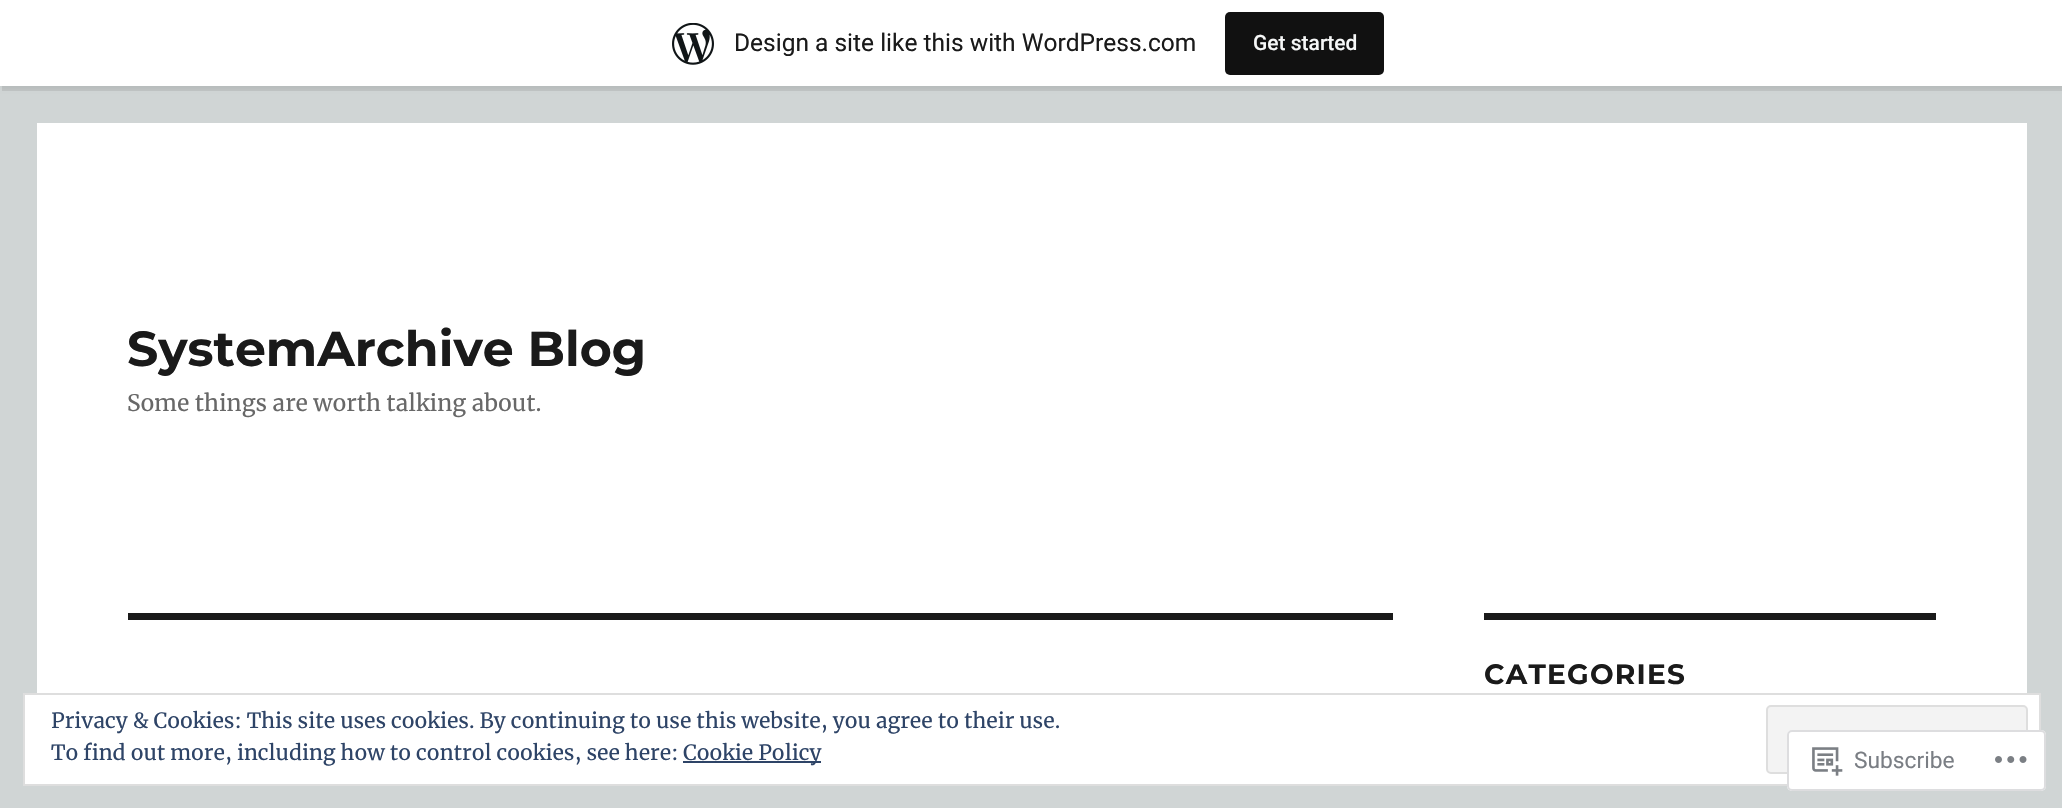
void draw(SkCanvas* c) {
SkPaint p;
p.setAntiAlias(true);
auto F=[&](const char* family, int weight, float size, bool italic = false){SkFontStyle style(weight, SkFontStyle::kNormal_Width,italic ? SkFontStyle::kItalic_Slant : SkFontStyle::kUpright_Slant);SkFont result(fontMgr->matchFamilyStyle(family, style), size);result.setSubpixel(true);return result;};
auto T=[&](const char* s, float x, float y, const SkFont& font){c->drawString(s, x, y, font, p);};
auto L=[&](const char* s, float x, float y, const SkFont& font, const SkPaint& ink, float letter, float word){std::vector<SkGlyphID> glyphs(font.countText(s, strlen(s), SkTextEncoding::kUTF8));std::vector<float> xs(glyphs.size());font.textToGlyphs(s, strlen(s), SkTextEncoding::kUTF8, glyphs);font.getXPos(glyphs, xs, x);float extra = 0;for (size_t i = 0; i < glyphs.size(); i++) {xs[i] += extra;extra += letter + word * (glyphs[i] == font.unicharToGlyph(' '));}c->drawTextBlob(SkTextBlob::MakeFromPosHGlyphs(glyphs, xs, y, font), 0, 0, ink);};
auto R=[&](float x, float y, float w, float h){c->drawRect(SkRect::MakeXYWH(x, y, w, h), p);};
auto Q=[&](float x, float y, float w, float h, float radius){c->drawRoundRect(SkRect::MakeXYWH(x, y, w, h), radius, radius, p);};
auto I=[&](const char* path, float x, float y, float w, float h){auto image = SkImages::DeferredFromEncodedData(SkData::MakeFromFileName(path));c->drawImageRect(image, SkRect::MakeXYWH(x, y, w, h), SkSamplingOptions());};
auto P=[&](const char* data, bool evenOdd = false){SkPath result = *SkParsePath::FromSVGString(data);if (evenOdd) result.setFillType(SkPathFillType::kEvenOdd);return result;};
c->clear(0xffd0d5d5);
p.setColor(0x0d000000);
p.setMaskFilter(SkMaskFilter::MakeBlur(kNormal_SkBlurStyle, 2));
c->drawRect(SkRect::MakeXYWH(0,2,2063,86),p);
p.setMaskFilter(nullptr);
p.setColor(0x14000000);
c->drawPath(P("M2 86v5h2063v-86h-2v81z"),p);
p.setColor(0xffffffff);
R(0,0,2062,86);
I("1.png",672,23,42,42);
auto f1 = F("Roboto",400,24.5);
p.setColor(0xff1a1a1a);
T("Design a site like this with WordPress.com",734,51,f1);
p.setColor(0xff111111);
Q(1225,12,159,63,5);
auto f2 = F("Roboto",500,21);
p.setColor(0xfff6f7f7);
T("Get started",1253,50,f2);
p.setColor(0xffffffff);
R(37,123,1990,570);
auto f3 = F("Montserrat",100,49);
p.setColor(0xff1a1a1a);
T("SystemArchive Blog",127,366,f3);
auto f4 = F("Merriweather",400,22.75);
p.setColor(0xff686868);
T("Some things are worth talking about.",127,411,f4);
p.setColor(0xff1a1a1a);
R(128,613,1265,7);
R(1484,613,452,7);
auto f5 = F("Montserrat",100,28);
L("CATEGORIES",1484,684,f5,p,1.25,0);
p.setColor(0xffffffff);
c->drawRect(SkRect::MakeXYWH(24,694,2016,91),p);
p.setStroke(true);
p.setStrokeWidth(2);
p.setColor(0xffdedede);
c->drawRect(SkRect::MakeXYWH(24,694,2016,91),p);
auto f6 = F("Merriweather",400,21);
p.setStroke(false);
p.setColor(0xff2e4467);
T("Privacy & Cookies: This site uses cookies. By continuing to use this website, you agree to their use.",51,728,f6);
p.setColor(0xfff3f3f3);
c->drawRoundRect(SkRect::MakeXYWH(1767,706,260,67),4,4,p);
p.setStroke(true);
p.setColor(0xffdedede);
c->drawRoundRect(SkRect::MakeXYWH(1767,706,260,67),4,4,p);
p.setStroke(false);
p.setColor(0xff2e4467);
T("To find out more, including how to control cookies, see here:",51,760,f6);
R(683,761,138,2);
T("Cookie Policy",683,760,f6);
p.setColor(0xfaffffff);
Q(1787,730,259,61,5);
p.setStroke(true);
p.setColor(0xfadcdcde);
c->drawRoundRect(SkRect::MakeXYWH(1788,731,257,59),4,4,p);
I("2.png",1812,747,31,29);
auto f7 = F("Roboto",400,22.75);
p.setStroke(false);
p.setColor(0xff7a7e84);
T("Subscribe",1854,768,f7);
I("3.png",1995,756,32,7);
}
